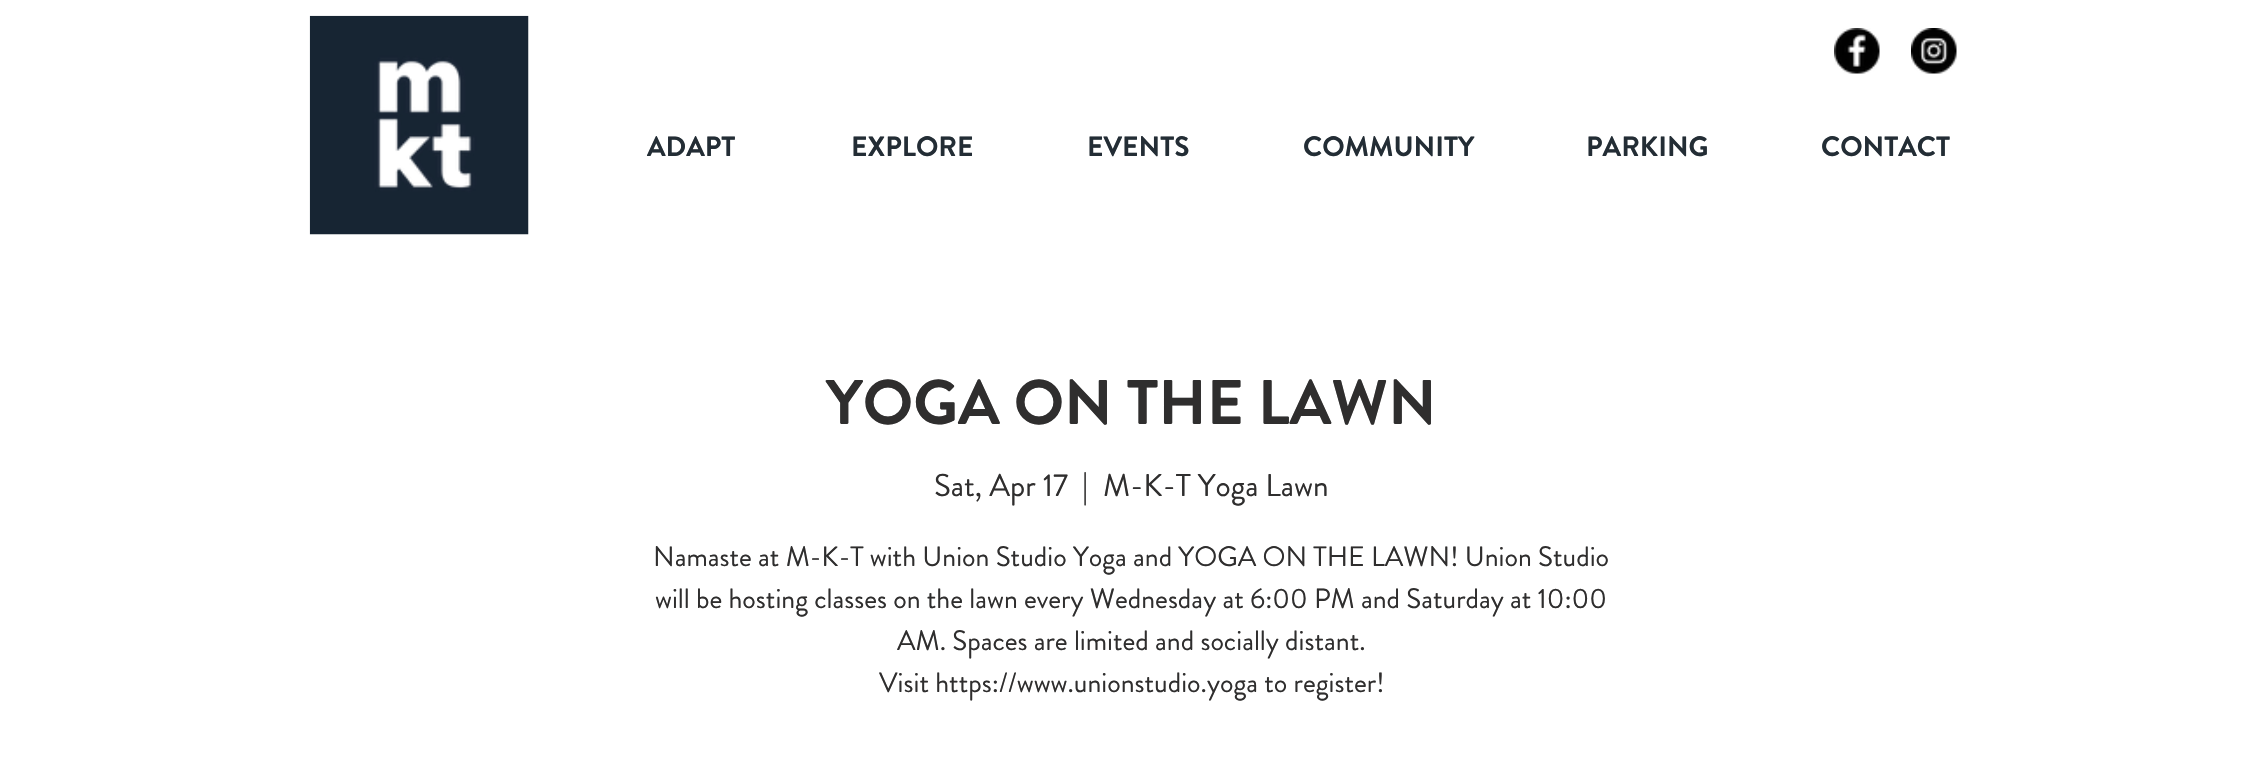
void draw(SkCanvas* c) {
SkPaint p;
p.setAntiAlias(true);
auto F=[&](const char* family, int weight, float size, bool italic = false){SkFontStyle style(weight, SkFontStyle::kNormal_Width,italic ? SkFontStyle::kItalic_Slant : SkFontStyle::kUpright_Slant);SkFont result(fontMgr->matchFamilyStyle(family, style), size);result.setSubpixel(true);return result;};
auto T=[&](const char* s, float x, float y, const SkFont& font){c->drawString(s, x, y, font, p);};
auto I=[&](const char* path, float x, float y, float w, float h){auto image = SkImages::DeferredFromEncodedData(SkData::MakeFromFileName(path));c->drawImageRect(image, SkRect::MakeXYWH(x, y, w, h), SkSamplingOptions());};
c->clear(0xffffffff);
I("1.png",309,15,220,220);
I("2.png",1834,28,46,46);
I("3.png",1911,28,46,46);
auto f1 = F("Brandon Grotesque",700,28);
p.setColor(0xff232d35);
T("ADAPT",647,156,f1);
T("EXPLORE",851,156,f1);
T("EVENTS",1087,156,f1);
T("COMMUNITY",1303,156,f1);
T("PARKING",1586,156,f1);
T("CONTACT",1821,156,f1);
auto f2 = F("Brandon Grotesque",700,63);
p.setColor(0xff2f2e2e);
T("YOGA ON THE LAWN",826,424,f2);
auto f3 = F("Brandon Grotesque",400,31.5);
T("Sat, Apr 17",934,496,f3);
T("|",1082,496,f3);
T("M-K-T Yoga Lawn",1103,496,f3);
auto f4 = F("Brandon Grotesque",400,28);
T("Namaste at M-K-T with Union Studio Yoga and YOGA ON THE LAWN! Union Studio",653,566,f4);
T("will be hosting classes on the lawn every Wednesday at 6:00 PM and Saturday at 10:00",655,608,f4);
T("AM. Spaces are limited and socially distant.",897,650,f4);
T("Visit https://www.unionstudio.yoga to register!",879,692,f4);
}
